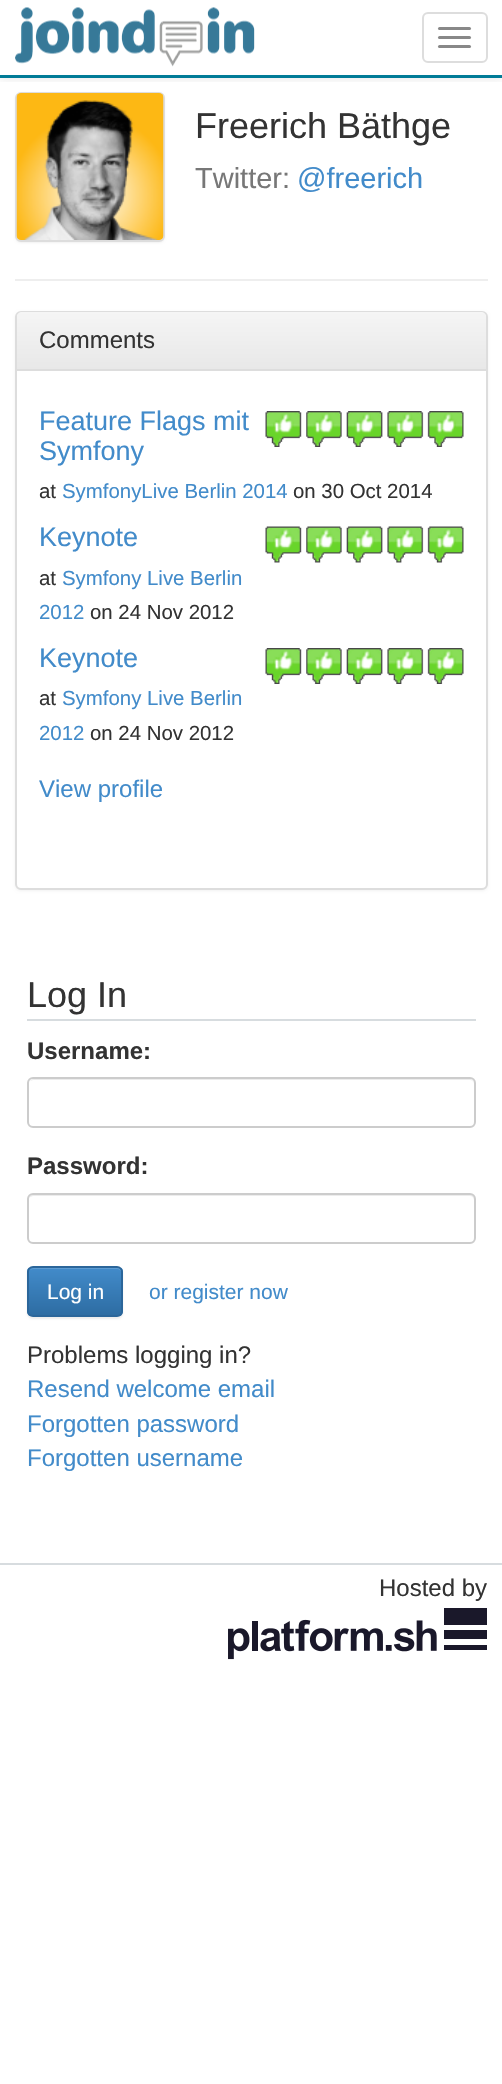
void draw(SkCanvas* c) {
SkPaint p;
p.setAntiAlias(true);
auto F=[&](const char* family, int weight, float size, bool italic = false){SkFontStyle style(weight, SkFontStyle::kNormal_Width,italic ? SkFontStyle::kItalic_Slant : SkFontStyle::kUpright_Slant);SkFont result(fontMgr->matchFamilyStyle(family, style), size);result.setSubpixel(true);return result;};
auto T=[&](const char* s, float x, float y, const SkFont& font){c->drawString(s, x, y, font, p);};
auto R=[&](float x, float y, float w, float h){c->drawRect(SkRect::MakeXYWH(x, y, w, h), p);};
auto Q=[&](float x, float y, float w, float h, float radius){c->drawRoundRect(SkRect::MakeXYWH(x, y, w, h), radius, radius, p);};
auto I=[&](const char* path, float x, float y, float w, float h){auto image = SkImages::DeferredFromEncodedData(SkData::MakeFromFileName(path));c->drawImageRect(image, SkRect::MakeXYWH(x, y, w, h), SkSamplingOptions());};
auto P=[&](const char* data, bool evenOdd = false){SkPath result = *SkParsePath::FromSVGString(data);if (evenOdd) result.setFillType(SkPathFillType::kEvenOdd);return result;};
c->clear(0xffffffff);
p.setColor(0x0d000000);
p.setMaskFilter(SkMaskFilter::MakeBlur(kNormal_SkBlurStyle, 1));
c->drawRoundRect(SkRect::MakeXYWH(15,93,150,150),6,6,p);
p.setMaskFilter(nullptr);
p.setStroke(true);
p.setStrokeWidth(2);
p.setColor(0xffdddddd);
c->drawRoundRect(SkRect::MakeXYWH(16,93,148,148),5,5,p);
c->save();
c->clipRect(SkRect::MakeXYWH(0,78,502,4));
p.setStroke(false);
p.setColor(0x12000000);
p.setMaskFilter(SkMaskFilter::MakeBlur(kNormal_SkBlurStyle, 4));
c->drawRect(SkRect::MakeXYWH(0,2,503,78),p);
p.setMaskFilter(nullptr);
c->restore();
p.setColor(0xff007b97);
R(0,75,502,3);
I("1.png",15,7,240,60);
p.setStroke(true);
p.setColor(0xffdddddd);
c->drawRoundRect(SkRect::MakeXYWH(423,13,64,49),5,5,p);
p.setStroke(false);
p.setColor(0xff888888);
Q(438,27,33,3,1.5);
Q(438,36,33,3,1.5);
Q(438,45,33,3,1.5);
p.setColor(0xffeeeeee);
R(15,279,473,2);
I("2.png",16,93,148,147);
auto f1 = F("Liberation Sans",400,36);
p.setColor(0xff333333);
T("Freerich Bäthge",195,138,f1);
auto f2 = F("Liberation Sans",400,29);
p.setColor(0xff777777);
T("Twitter:",195,188,f2);
p.setColor(0xff428bca);
T("@freerich",297,188,f2);
p.setColor(0x0d000000);
p.setMaskFilter(SkMaskFilter::MakeBlur(kNormal_SkBlurStyle, 1.5));
c->drawRoundRect(SkRect::MakeXYWH(15,312,473,579),6,6,p);
p.setMaskFilter(nullptr);
p.setColor(0xffffffff);
c->drawRoundRect(SkRect::MakeXYWH(16,312,471,577),5,5,p);
p.setStroke(true);
p.setColor(0xffdddddd);
c->drawRoundRect(SkRect::MakeXYWH(16,312,471,577),5,5,p);
p.setStroke(false);
{
const SkColor colors[] = {0xfff5f5f5,0xffe8e8e8};
const float stops[] = {0,1};
const SkPoint ends[] = {{251,312}, {251,369}};
p.setShader(SkGradientShader::MakeLinear(ends, colors, stops, 2, SkTileMode::kClamp));
p.setAlpha(255);
}
c->drawPath(P("M22 312h459c3 0 5 2 5 5v52h-469v-52c0-3 2-5 5-5z"),p);
p.setShader(nullptr);
p.setColor(0xffdddddd);
R(17,369,469,2);
auto f3 = F("Liberation Sans",400,24);
p.setColor(0xff333333);
T("Comments",39,348,f3);
auto f4 = F("Liberation Sans",400,27);
p.setColor(0xff428bca);
T("Feature Flags mit",39,430,f4);
T("Symfony",39,460,f4);
I("3.png",265,411,199,36);
auto f5 = F("Liberation Sans",400,20.4);
p.setColor(0xff333333);
T("at",39,498,f5);
p.setColor(0xff428bca);
T("SymfonyLive Berlin 2014",62,498,f5);
p.setColor(0xff333333);
T("on 30 Oct 2014",293,498,f5);
p.setColor(0xff428bca);
T("Keynote",39,546,f4);
I("4.png",265,526,199,37);
p.setColor(0xff333333);
T("at",39,585,f5);
p.setColor(0xff428bca);
T("Symfony Live Berlin",62,585,f5);
T("2012",39,619,f5);
p.setColor(0xff333333);
T("on 24 Nov 2012",90,619,f5);
p.setColor(0xff428bca);
T("Keynote",39,667,f4);
I("5.png",265,648,199,36);
p.setColor(0xff333333);
T("at",39,705,f5);
p.setColor(0xff428bca);
T("Symfony Live Berlin",62,705,f5);
T("2012",39,740,f5);
p.setColor(0xff333333);
T("on 24 Nov 2012",90,740,f5);
p.setColor(0xff428bca);
T("View profile",39,797,f3);
p.setColor(0xffd7dcdf);
R(27,1019,449,2);
p.setColor(0xff333333);
T("Log In",27,1007,f1);
auto f6 = F("Liberation Sans",700,24);
T("Username:",27,1059,f6);
p.setColor(0xffececec);
c->drawPath(P("M33 1080h437c2 0 4 2 4 4c0-3-2-5-5-5h-435c-2 0-3 1-4 2z"),p);
p.setStroke(true);
p.setColor(0xffcccccc);
c->drawRoundRect(SkRect::MakeXYWH(28,1078,447,49),5,5,p);
p.setStroke(false);
p.setColor(0xff333333);
T("Password:",27,1174,f6);
p.setColor(0xffececec);
c->drawPath(P("M33 1196h437c2 0 4 2 4 4v-1c0-3-2-5-5-5h-435c-2 0-4 2-5 4c1-1 3-2 4-2z"),p);
p.setStroke(true);
p.setColor(0xffcccccc);
c->drawRoundRect(SkRect::MakeXYWH(28,1194,447,49),5,5,p);
p.setStroke(false);
p.setColor(0x12000000);
p.setMaskFilter(SkMaskFilter::MakeBlur(kNormal_SkBlurStyle, 1));
c->drawRoundRect(SkRect::MakeXYWH(27,1268,96,51),6,6,p);
p.setMaskFilter(nullptr);
c->save();
c->clipPath(P("M33 1266h84c3.5 0 6 2.5 6 6v39c0 3.5-2.5 6-6 6h-84c-3.5 0-6-2.5-6-6v-39c0-3.5 2.5-6 6-6z"),true);
{
const SkColor colors[] = {0xff428bca,0xff2d6ca2};
const float stops[] = {0,1};
const SkPoint ends[] = {{75,1268}, {75,1316}};
p.setShader(SkGradientShader::MakeLinear(ends, colors, stops, 2, SkTileMode::kClamp));
p.setAlpha(255);
}
R(27,1268,96,48);
c->restore();
p.setShader(nullptr);
p.setColor(0x26ffffff);
c->drawPath(P("M33 1269h84c2 0 5 2 5 5v-1c0-3-2-5-5-5h-83c-2 0-3 1-4 2z"),p);
p.setStroke(true);
p.setColor(0xff2b669a);
c->drawRoundRect(SkRect::MakeXYWH(28,1267,94,49),5,5,p);
auto f7 = F("Liberation Sans",400,21);
p.setStroke(false);
p.setColor(0xffffffff);
T("Log in",47,1299,f7);
p.setColor(0xff428bca);
T("or register now",149,1299,f7);
p.setColor(0xff333333);
T("Problems logging in?",27,1363,f3);
p.setColor(0xff428bca);
T("Resend welcome email",27,1397,f3);
T("Forgotten password",27,1432,f3);
T("Forgotten username",27,1466,f3);
p.setColor(0xffd7dcdf);
R(0,1563,502,2);
p.setColor(0xff333333);
T("Hosted by",379,1596,f3);
I("6.png",228,1608,259,52);
}
